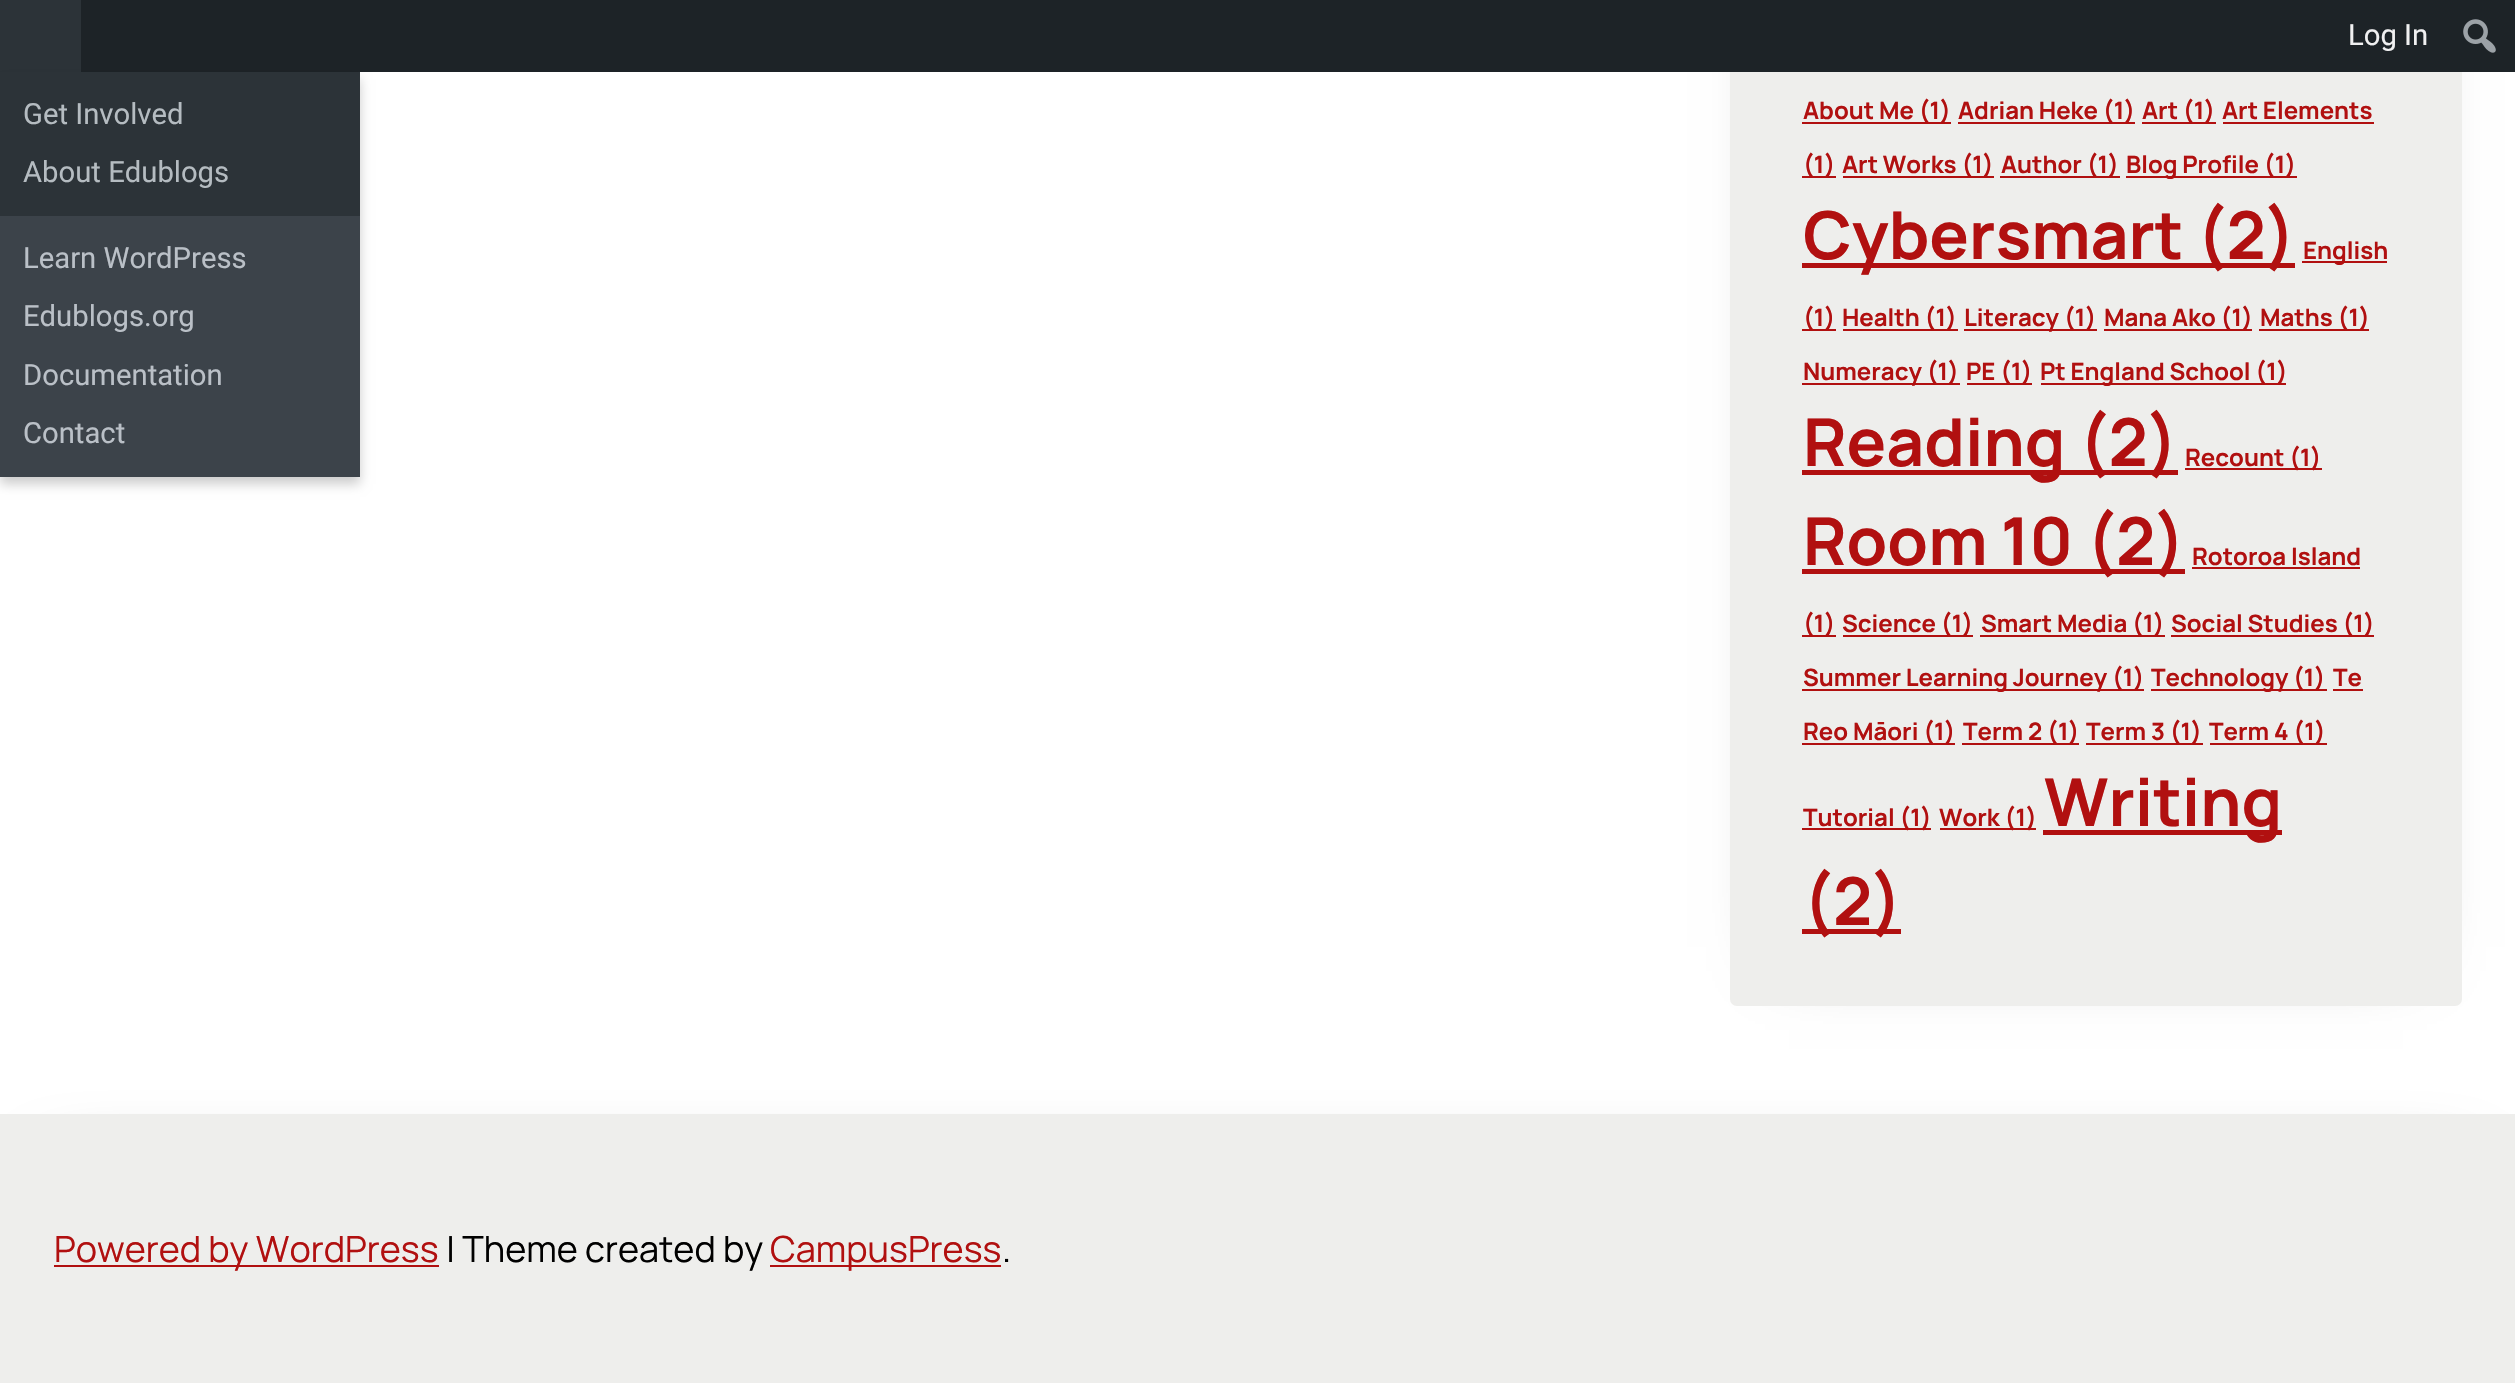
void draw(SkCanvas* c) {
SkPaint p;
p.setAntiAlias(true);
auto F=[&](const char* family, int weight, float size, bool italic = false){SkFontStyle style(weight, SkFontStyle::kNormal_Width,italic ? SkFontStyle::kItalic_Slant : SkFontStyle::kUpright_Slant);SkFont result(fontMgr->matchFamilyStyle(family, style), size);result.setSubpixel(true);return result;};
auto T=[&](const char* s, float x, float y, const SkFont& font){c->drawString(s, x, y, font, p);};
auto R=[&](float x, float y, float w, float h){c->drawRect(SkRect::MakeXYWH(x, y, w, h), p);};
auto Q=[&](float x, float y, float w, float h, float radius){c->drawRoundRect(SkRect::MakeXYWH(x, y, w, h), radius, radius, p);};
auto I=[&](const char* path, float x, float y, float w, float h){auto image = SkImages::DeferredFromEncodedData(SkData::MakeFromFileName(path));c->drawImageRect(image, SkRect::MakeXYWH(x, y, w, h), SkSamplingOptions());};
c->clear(0xffffffff);
p.setColor(0x80000000);
p.setMaskFilter(SkMaskFilter::MakeBlur(kNormal_SkBlurStyle, 34));
c->drawRect(SkRect::MakeXYWH(1789,-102,614,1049),p);
p.setMaskFilter(nullptr);
p.setColor(0xffeeeeec);
Q(1730,-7,732,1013,7);
p.setColor(0xff1d2327);
R(81,0,2434,72);
auto f1 = F("Roboto",400,29.25);
p.setColor(0xfff0f0f1);
T("Log In",2348,45,f1);
I("1.png",2463,19,33,34);
p.setColor(0xff2c3338);
R(0,0,81,72);
p.setColor(0x33000000);
p.setMaskFilter(SkMaskFilter::MakeBlur(kNormal_SkBlurStyle, 5.5));
c->drawRect(SkRect::MakeXYWH(0,79,360,405),p);
p.setMaskFilter(nullptr);
p.setColor(0xff2c3338);
R(0,72,360,144);
p.setColor(0xffb5bcc1);
T("Get Involved",23,124,f1);
T("About Edublogs",23,182,f1);
p.setColor(0xff3c434a);
R(0,216,360,261);
p.setColor(0xffbac0c7);
T("Learn WordPress",23,268,f1);
T("Edublogs.org",23,326,f1);
T("Documentation",23,385,f1);
T("Contact",23,443,f1);
p.setColor(0xffb11010);
R(1802,122,149,2);
auto f2 = F("Manrope",700,24);
T("About Me (1)",1803,119,f2);
R(1958,122,177,2);
T("Adrian Heke (1)",1958,119,f2);
R(2142,122,74,2);
T("Art (1)",2142,119,f2);
T("Art Elements",2222,119,f2);
R(2223,122,151,2);
R(1802,176,34,2);
T("(1)",1803,173,f2);
R(1843,176,151,2);
T("Art Works (1)",1842,173,f2);
R(2000,176,120,2);
T("Author (1)",2001,173,f2);
R(2126,176,171,2);
T("Blog Profile (1)",2126,173,f2);
R(1802,263,493,5);
auto f3 = F("Manrope",700,66);
T("Cybersmart (2)",1803,259,f3);
R(2302,261,85,2);
T("English",2303,259,f2);
R(1802,329,34,2);
T("(1)",1803,326,f2);
R(1843,329,115,2);
T("Health (1)",1842,326,f2);
R(1964,329,95,2);
T("Literacy",1964,326,f2);
R(2059,329,38,2);
T("(1)",2064,326,f2);
R(2104,329,148,2);
T("Mana Ako (1)",2104,326,f2);
R(2259,329,110,2);
T("Maths (1)",2260,326,f2);
R(1802,383,158,2);
T("Numeracy (1)",1803,380,f2);
R(1967,383,65,2);
T("PE (1)",1966,380,f2);
R(2041,383,245,2);
T("Pt England School (1)",2040,380,f2);
R(1802,470,376,5);
T("Reading (2)",1803,466,f3);
R(2185,468,137,2);
T("Recount (1)",2185,466,f2);
R(1802,569,383,5);
T("Room 10 (2)",1803,565,f3);
T("Rotoroa Island",2192,565,f2);
R(2192,567,168,2);
R(1802,635,34,2);
T("(1)",1803,632,f2);
R(1843,635,130,2);
T("Science (1)",1842,632,f2);
R(1980,635,185,2);
T("Smart Media (1)",1981,632,f2);
R(2171,635,203,2);
T("Social Studies (1)",2171,632,f2);
R(1802,689,304,2);
T("Summer Learning Journey",1803,686,f2);
R(2106,689,38,2);
T("(1)",2112,686,f2);
R(2151,689,137,2);
T("Technology",2151,686,f2);
R(2288,689,39,2);
T("(1)",2293,686,f2);
T("Te",2333,686,f2);
R(2333,689,30,2);
R(1802,743,153,2);
T("Reo Māori (1)",1803,740,f2);
R(1962,743,117,2);
T("Term 2 (1)",1963,740,f2);
R(2086,743,117,2);
T("Term 3 (1)",2086,740,f2);
R(2210,743,117,2);
T("Term 4 (1)",2209,740,f2);
R(1802,828,129,2);
T("Tutorial (1)",1803,826,f2);
R(1940,828,96,2);
T("Work (1)",1939,826,f2);
R(2043,830,239,5);
T("Writing",2044,826,f3);
R(1802,929,99,5);
T("(2)",1803,925,f3);
p.setColor(0x80000000);
p.setMaskFilter(SkMaskFilter::MakeBlur(kNormal_SkBlurStyle, 34));
c->drawRect(SkRect::MakeXYWH(59,1172,2398,153),p);
p.setMaskFilter(nullptr);
p.setColor(0xffeeeeec);
R(0,1114,2515,269);
p.setColor(0xffb11010);
R(54,1265,385,2);
auto f4 = F("Manrope",400,36);
T("Powered by WordPress",54,1262,f4);
p.setColor(0xff000000);
T("| Theme created by",446,1262,f4);
p.setColor(0xffb11010);
R(770,1265,231,2);
T("CampusPress",770,1262,f4);
p.setColor(0xff000000);
T(".",1002,1262,f4);
}
